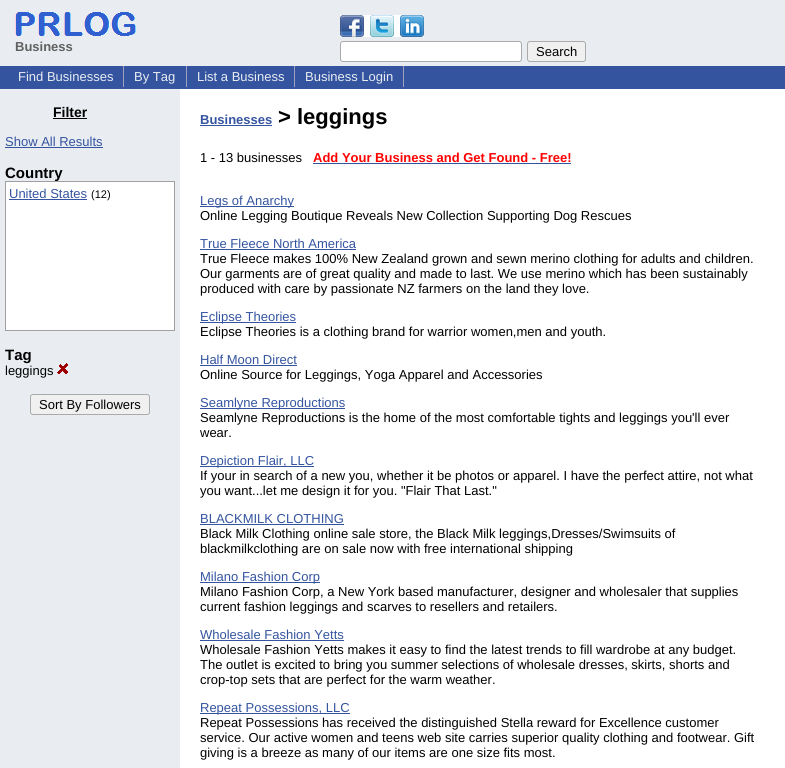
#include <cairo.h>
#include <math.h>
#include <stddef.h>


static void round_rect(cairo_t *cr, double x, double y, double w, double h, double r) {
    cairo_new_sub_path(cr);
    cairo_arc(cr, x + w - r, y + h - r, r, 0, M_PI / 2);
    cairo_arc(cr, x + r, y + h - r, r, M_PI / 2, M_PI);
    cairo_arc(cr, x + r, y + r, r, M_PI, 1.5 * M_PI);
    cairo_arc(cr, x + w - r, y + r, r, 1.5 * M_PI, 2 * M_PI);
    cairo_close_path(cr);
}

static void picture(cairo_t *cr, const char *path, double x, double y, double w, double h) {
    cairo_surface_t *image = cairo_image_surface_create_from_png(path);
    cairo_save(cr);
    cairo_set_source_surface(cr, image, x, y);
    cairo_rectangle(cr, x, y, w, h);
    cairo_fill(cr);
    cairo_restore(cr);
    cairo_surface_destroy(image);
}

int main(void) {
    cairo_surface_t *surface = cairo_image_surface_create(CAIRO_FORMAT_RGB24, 785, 768);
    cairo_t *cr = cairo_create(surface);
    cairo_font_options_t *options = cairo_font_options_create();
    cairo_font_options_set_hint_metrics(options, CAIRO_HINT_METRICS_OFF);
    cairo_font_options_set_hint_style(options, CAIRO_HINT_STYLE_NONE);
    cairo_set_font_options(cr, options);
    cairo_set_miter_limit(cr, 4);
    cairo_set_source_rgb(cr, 1, 1, 1);
    cairo_paint(cr);
    cairo_set_source_rgb(cr, 0.914, 0.929, 0.949);
    cairo_rectangle(cr, 0, 0, 785, 66);
    cairo_fill(cr);
    picture(cr, "img1.png", 15, 12, 121, 24);
    cairo_select_font_face(cr, "Liberation Sans", CAIRO_FONT_SLANT_NORMAL, CAIRO_FONT_WEIGHT_BOLD);
    cairo_set_font_size(cr, 13);
    cairo_set_source_rgb(cr, 0.376, 0.376, 0.376);
    cairo_move_to(cr, 15, 51);
    cairo_show_text(cr, "Business");
    picture(cr, "img2.png", 340, 15, 84, 22);
    cairo_set_source_rgb(cr, 1, 1, 1);
    round_rect(cr, 340.5, 41.5, 181, 20, 2.5);
    cairo_fill_preserve(cr);
    cairo_set_source_rgb(cr, 0.667, 0.667, 0.667);
    cairo_set_line_width(cr, 1);
    cairo_stroke(cr);
    cairo_set_source_rgb(cr, 0.941, 0.941, 0.941);
    round_rect(cr, 527.5, 41.5, 58, 20, 2.5);
    cairo_fill_preserve(cr);
    cairo_set_source_rgb(cr, 0.667, 0.667, 0.667);
    cairo_stroke(cr);
    cairo_select_font_face(cr, "Liberation Sans", CAIRO_FONT_SLANT_NORMAL, CAIRO_FONT_WEIGHT_NORMAL);
    cairo_set_source_rgb(cr, 0, 0, 0);
    cairo_move_to(cr, 536, 56);
    cairo_show_text(cr, "Search");
    cairo_set_source_rgb(cr, 0.204, 0.329, 0.627);
    cairo_rectangle(cr, 0, 66, 785, 23);
    cairo_fill(cr);
    cairo_set_source_rgb(cr, 0.627, 0.627, 0.753);
    cairo_rectangle(cr, 123, 66, 1, 21);
    cairo_fill(cr);
    cairo_set_source_rgb(cr, 0.914, 0.929, 0.949);
    cairo_move_to(cr, 18, 81);
    cairo_show_text(cr, "Find Businesses");
    cairo_set_source_rgb(cr, 0.627, 0.627, 0.753);
    cairo_rectangle(cr, 186, 66, 1, 21);
    cairo_fill(cr);
    cairo_set_source_rgb(cr, 0.914, 0.929, 0.949);
    cairo_move_to(cr, 134, 81);
    cairo_show_text(cr, "By Tag");
    cairo_set_source_rgb(cr, 0.627, 0.627, 0.753);
    cairo_rectangle(cr, 294, 66, 1, 21);
    cairo_fill(cr);
    cairo_set_source_rgb(cr, 0.914, 0.929, 0.949);
    cairo_move_to(cr, 197, 81);
    cairo_show_text(cr, "List a Business");
    cairo_set_source_rgb(cr, 0.627, 0.627, 0.753);
    cairo_rectangle(cr, 403, 66, 1, 21);
    cairo_fill(cr);
    cairo_set_source_rgb(cr, 0.914, 0.929, 0.949);
    cairo_move_to(cr, 305, 81);
    cairo_show_text(cr, "Business Login");
    cairo_rectangle(cr, 0, 89, 180, 679);
    cairo_fill(cr);
    cairo_select_font_face(cr, "Liberation Sans", CAIRO_FONT_SLANT_NORMAL, CAIRO_FONT_WEIGHT_BOLD);
    cairo_set_font_size(cr, 14);
    cairo_set_source_rgb(cr, 0, 0, 0);
    cairo_move_to(cr, 53, 117);
    cairo_show_text(cr, "Filter");
    cairo_rectangle(cr, 53, 118, 34, 1);
    cairo_fill(cr);
    cairo_select_font_face(cr, "Liberation Sans", CAIRO_FONT_SLANT_NORMAL, CAIRO_FONT_WEIGHT_NORMAL);
    cairo_set_font_size(cr, 13);
    cairo_set_source_rgb(cr, 0.204, 0.329, 0.627);
    cairo_move_to(cr, 5, 146);
    cairo_show_text(cr, "Show All Results");
    cairo_rectangle(cr, 5, 147, 98, 1);
    cairo_fill(cr);
    cairo_select_font_face(cr, "Liberation Sans", CAIRO_FONT_SLANT_NORMAL, CAIRO_FONT_WEIGHT_BOLD);
    cairo_set_font_size(cr, 15);
    cairo_set_source_rgb(cr, 0, 0, 0);
    cairo_move_to(cr, 5, 178);
    cairo_show_text(cr, "Country");
    cairo_set_source_rgb(cr, 1, 1, 1);
    cairo_rectangle(cr, 5.5, 181.5, 169, 149);
    cairo_fill_preserve(cr);
    cairo_set_source_rgb(cr, 0.627, 0.627, 0.627);
    cairo_stroke(cr);
    cairo_select_font_face(cr, "Liberation Sans", CAIRO_FONT_SLANT_NORMAL, CAIRO_FONT_WEIGHT_NORMAL);
    cairo_set_font_size(cr, 13);
    cairo_set_source_rgb(cr, 0.204, 0.329, 0.627);
    cairo_move_to(cr, 9, 198);
    cairo_show_text(cr, "United States");
    cairo_rectangle(cr, 9, 199, 78, 1);
    cairo_fill(cr);
    cairo_set_font_size(cr, 11);
    cairo_set_source_rgb(cr, 0, 0, 0);
    cairo_move_to(cr, 91, 198);
    cairo_show_text(cr, "(12)");
    cairo_select_font_face(cr, "Liberation Sans", CAIRO_FONT_SLANT_NORMAL, CAIRO_FONT_WEIGHT_BOLD);
    cairo_set_font_size(cr, 15);
    cairo_move_to(cr, 5, 360);
    cairo_show_text(cr, "Tag");
    cairo_select_font_face(cr, "Liberation Sans", CAIRO_FONT_SLANT_NORMAL, CAIRO_FONT_WEIGHT_NORMAL);
    cairo_set_font_size(cr, 13);
    cairo_move_to(cr, 5, 375);
    cairo_show_text(cr, "leggings");
    picture(cr, "img3.png", 57, 363, 11, 11);
    cairo_set_source_rgb(cr, 0.941, 0.941, 0.941);
    round_rect(cr, 30.5, 394.5, 119, 20, 2.5);
    cairo_fill_preserve(cr);
    cairo_set_source_rgb(cr, 0.667, 0.667, 0.667);
    cairo_stroke(cr);
    cairo_set_source_rgb(cr, 0, 0, 0);
    cairo_move_to(cr, 39, 409);
    cairo_show_text(cr, "Sort By Followers");
    cairo_select_font_face(cr, "Liberation Sans", CAIRO_FONT_SLANT_NORMAL, CAIRO_FONT_WEIGHT_BOLD);
    cairo_set_source_rgb(cr, 0.204, 0.329, 0.627);
    cairo_move_to(cr, 200, 124);
    cairo_show_text(cr, "Businesses");
    cairo_rectangle(cr, 200, 125, 72, 1);
    cairo_fill(cr);
    cairo_set_font_size(cr, 22);
    cairo_set_source_rgb(cr, 0, 0, 0);
    cairo_move_to(cr, 278, 124);
    cairo_show_text(cr, "> leggings");
    cairo_select_font_face(cr, "Liberation Sans", CAIRO_FONT_SLANT_NORMAL, CAIRO_FONT_WEIGHT_NORMAL);
    cairo_set_font_size(cr, 13);
    cairo_move_to(cr, 200, 162);
    cairo_show_text(cr, "1 - 13 businesses");
    cairo_select_font_face(cr, "Liberation Sans", CAIRO_FONT_SLANT_NORMAL, CAIRO_FONT_WEIGHT_BOLD);
    cairo_set_source_rgb(cr, 1, 0, 0);
    cairo_move_to(cr, 313, 162);
    cairo_show_text(cr, "Add Your Business and Get Found - Free!");
    cairo_set_source_rgb(cr, 0.204, 0.329, 0.627);
    cairo_rectangle(cr, 313, 163, 258, 1);
    cairo_fill(cr);
    cairo_rectangle(cr, 200, 206, 94, 1);
    cairo_fill(cr);
    cairo_select_font_face(cr, "Liberation Sans", CAIRO_FONT_SLANT_NORMAL, CAIRO_FONT_WEIGHT_NORMAL);
    cairo_move_to(cr, 200, 205);
    cairo_show_text(cr, "Legs of Anarchy");
    cairo_set_source_rgb(cr, 0, 0, 0);
    cairo_move_to(cr, 200, 220);
    cairo_show_text(cr, "Online Legging Boutique Reveals New Collection Supporting Dog Rescues");
    cairo_set_source_rgb(cr, 0.204, 0.329, 0.627);
    cairo_move_to(cr, 200, 248);
    cairo_show_text(cr, "True Fleece North America");
    cairo_rectangle(cr, 200, 249, 156, 1);
    cairo_fill(cr);
    cairo_set_source_rgb(cr, 0, 0, 0);
    cairo_move_to(cr, 200, 263);
    cairo_show_text(cr, "True Fleece makes 100% New Zealand grown and sewn merino clothing for adults and children.");
    cairo_move_to(cr, 200, 278);
    cairo_show_text(cr, "Our garments are of great quality and made to last. We use merino which has been sustainably");
    cairo_move_to(cr, 200, 293);
    cairo_show_text(cr, "produced with care by passionate NZ farmers on the land they love.");
    cairo_set_source_rgb(cr, 0.204, 0.329, 0.627);
    cairo_rectangle(cr, 200, 322, 96, 1);
    cairo_fill(cr);
    cairo_move_to(cr, 200, 321);
    cairo_show_text(cr, "Eclipse Theories");
    cairo_set_source_rgb(cr, 0, 0, 0);
    cairo_move_to(cr, 200, 336);
    cairo_show_text(cr, "Eclipse Theories is a clothing brand for warrior women,men and youth.");
    cairo_set_source_rgb(cr, 0.204, 0.329, 0.627);
    cairo_move_to(cr, 200, 364);
    cairo_show_text(cr, "Half Moon Direct");
    cairo_rectangle(cr, 200, 365, 97, 1);
    cairo_fill(cr);
    cairo_set_source_rgb(cr, 0, 0, 0);
    cairo_move_to(cr, 200, 379);
    cairo_show_text(cr, "Online Source for Leggings, Yoga Apparel and Accessories");
    cairo_set_source_rgb(cr, 0.204, 0.329, 0.627);
    cairo_rectangle(cr, 200, 408, 145, 1);
    cairo_fill(cr);
    cairo_move_to(cr, 200, 407);
    cairo_show_text(cr, "Seamlyne Reproductions");
    cairo_set_source_rgb(cr, 0, 0, 0);
    cairo_move_to(cr, 200, 422);
    cairo_show_text(cr, "Seamlyne Reproductions is the home of the most comfortable tights and leggings you'll ever");
    cairo_move_to(cr, 200, 437);
    cairo_show_text(cr, "wear.");
    cairo_set_source_rgb(cr, 0.204, 0.329, 0.627);
    cairo_rectangle(cr, 200, 466, 114, 1);
    cairo_fill(cr);
    cairo_move_to(cr, 200, 465);
    cairo_show_text(cr, "Depiction Flair, LLC");
    cairo_set_source_rgb(cr, 0, 0, 0);
    cairo_move_to(cr, 200, 480);
    cairo_show_text(cr, "If your in search of a new you, whether it be photos or apparel. I have the perfect attire, not what");
    cairo_move_to(cr, 200, 495);
    cairo_show_text(cr, "you want...let me design it for you. \"Flair That Last.\"");
    cairo_set_source_rgb(cr, 0.204, 0.329, 0.627);
    cairo_move_to(cr, 200, 523);
    cairo_show_text(cr, "BLACKMILK CLOTHING");
    cairo_rectangle(cr, 200, 524, 144, 1);
    cairo_fill(cr);
    cairo_set_source_rgb(cr, 0, 0, 0);
    cairo_move_to(cr, 200, 538);
    cairo_show_text(cr, "Black Milk Clothing online sale store, the Black Milk leggings,Dresses/Swimsuits of");
    cairo_move_to(cr, 200, 553);
    cairo_show_text(cr, "blackmilkclothing are on sale now with free international shipping");
    cairo_set_source_rgb(cr, 0.204, 0.329, 0.627);
    cairo_rectangle(cr, 200, 582, 120, 1);
    cairo_fill(cr);
    cairo_move_to(cr, 200, 581);
    cairo_show_text(cr, "Milano Fashion Corp");
    cairo_set_source_rgb(cr, 0, 0, 0);
    cairo_move_to(cr, 200, 596);
    cairo_show_text(cr, "Milano Fashion Corp, a New York based manufacturer, designer and wholesaler that supplies");
    cairo_move_to(cr, 200, 611);
    cairo_show_text(cr, "current fashion leggings and scarves to resellers and retailers.");
    cairo_set_source_rgb(cr, 0.204, 0.329, 0.627);
    cairo_move_to(cr, 200, 639);
    cairo_show_text(cr, "Wholesale Fashion Yetts");
    cairo_rectangle(cr, 200, 640, 144, 1);
    cairo_fill(cr);
    cairo_set_source_rgb(cr, 0, 0, 0);
    cairo_move_to(cr, 200, 654);
    cairo_show_text(cr, "Wholesale Fashion Yetts makes it easy to find the latest trends to fill wardrobe at any budget.");
    cairo_move_to(cr, 200, 669);
    cairo_show_text(cr, "The outlet is excited to bring you summer selections of wholesale dresses, skirts, shorts and");
    cairo_move_to(cr, 200, 684);
    cairo_show_text(cr, "crop-top sets that are perfect for the warm weather.");
    cairo_set_source_rgb(cr, 0.204, 0.329, 0.627);
    cairo_rectangle(cr, 200, 713, 150, 1);
    cairo_fill(cr);
    cairo_move_to(cr, 200, 712);
    cairo_show_text(cr, "Repeat Possessions, LLC");
    cairo_set_source_rgb(cr, 0, 0, 0);
    cairo_move_to(cr, 200, 727);
    cairo_show_text(cr, "Repeat Possessions has received the distinguished Stella reward for Excellence customer");
    cairo_move_to(cr, 200, 742);
    cairo_show_text(cr, "service. Our active women and teens web site carries superior quality clothing and footwear. Gift");
    cairo_move_to(cr, 200, 757);
    cairo_show_text(cr, "giving is a breeze as many of our items are one size fits most.");
    cairo_surface_write_to_png(surface, "page.png");
    cairo_font_options_destroy(options);
    cairo_destroy(cr);
    cairo_surface_destroy(surface);
    return 0;
}
